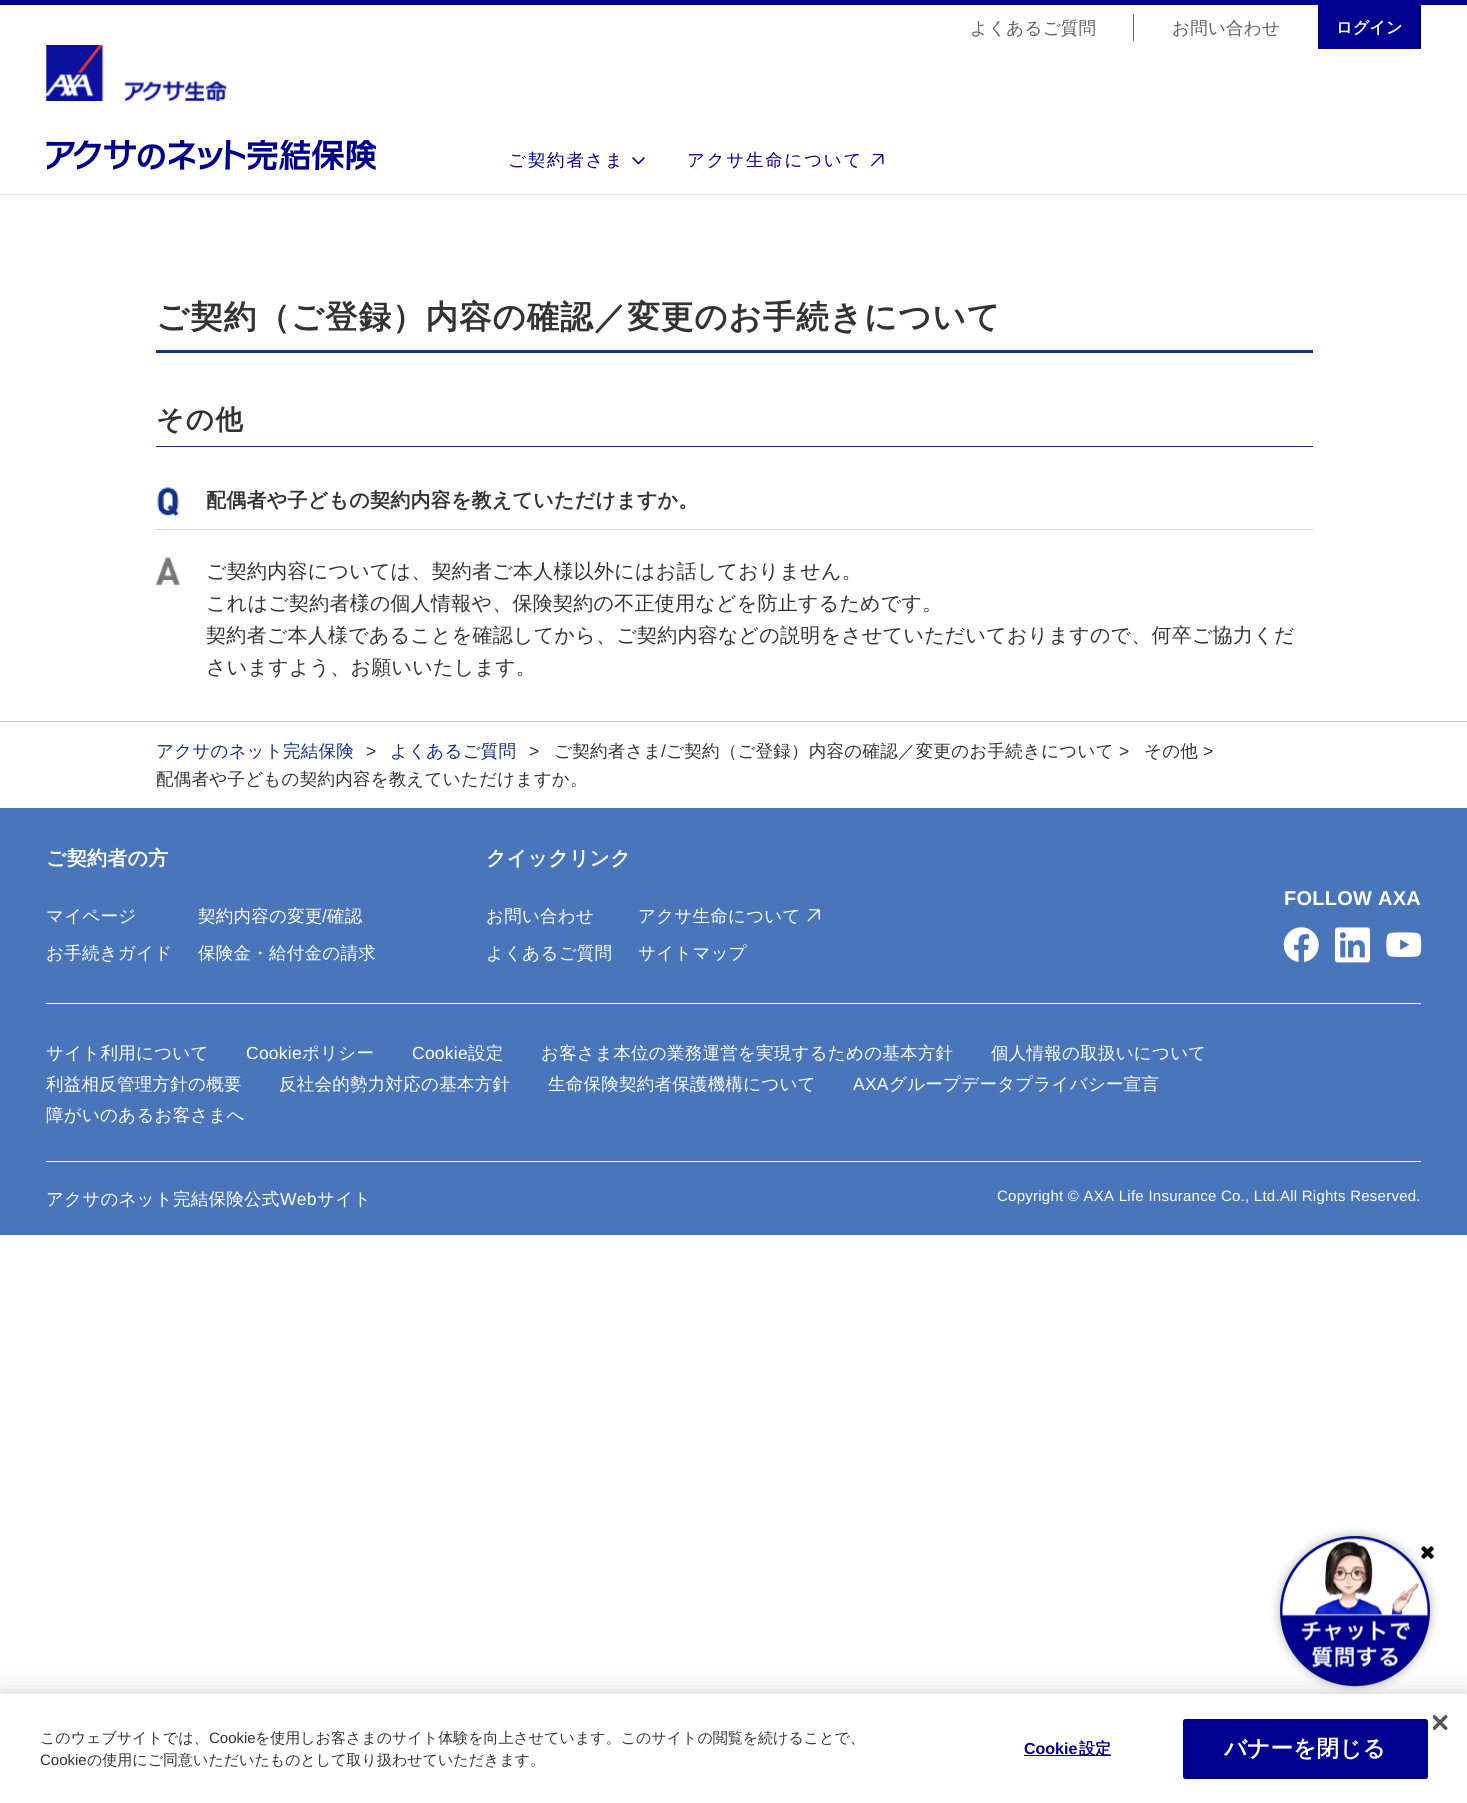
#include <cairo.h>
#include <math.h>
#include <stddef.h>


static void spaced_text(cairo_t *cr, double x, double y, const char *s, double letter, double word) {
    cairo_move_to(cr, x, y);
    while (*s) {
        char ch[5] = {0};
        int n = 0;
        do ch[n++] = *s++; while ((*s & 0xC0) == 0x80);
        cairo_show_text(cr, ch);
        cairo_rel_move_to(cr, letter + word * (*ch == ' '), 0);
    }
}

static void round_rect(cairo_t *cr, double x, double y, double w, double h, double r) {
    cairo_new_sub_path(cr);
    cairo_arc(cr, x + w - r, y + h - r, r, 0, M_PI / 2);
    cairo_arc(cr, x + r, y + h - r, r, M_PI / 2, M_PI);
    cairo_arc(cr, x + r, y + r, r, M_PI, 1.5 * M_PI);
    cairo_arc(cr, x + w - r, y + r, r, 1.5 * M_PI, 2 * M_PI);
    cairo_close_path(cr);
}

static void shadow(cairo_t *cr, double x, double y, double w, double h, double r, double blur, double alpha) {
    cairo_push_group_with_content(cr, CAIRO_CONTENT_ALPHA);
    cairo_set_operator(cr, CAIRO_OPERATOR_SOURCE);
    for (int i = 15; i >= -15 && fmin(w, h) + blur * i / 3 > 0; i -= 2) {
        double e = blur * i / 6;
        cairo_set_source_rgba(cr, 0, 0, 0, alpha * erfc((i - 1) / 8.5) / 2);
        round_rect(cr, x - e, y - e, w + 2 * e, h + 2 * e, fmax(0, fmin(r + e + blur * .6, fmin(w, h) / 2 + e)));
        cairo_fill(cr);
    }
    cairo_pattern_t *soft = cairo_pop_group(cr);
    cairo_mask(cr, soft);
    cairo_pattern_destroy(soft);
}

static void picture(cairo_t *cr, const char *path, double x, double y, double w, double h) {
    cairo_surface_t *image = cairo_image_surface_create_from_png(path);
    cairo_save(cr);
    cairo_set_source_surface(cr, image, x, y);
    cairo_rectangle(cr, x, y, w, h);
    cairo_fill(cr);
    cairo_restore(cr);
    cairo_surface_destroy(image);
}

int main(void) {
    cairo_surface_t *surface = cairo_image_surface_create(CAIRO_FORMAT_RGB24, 1467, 1803);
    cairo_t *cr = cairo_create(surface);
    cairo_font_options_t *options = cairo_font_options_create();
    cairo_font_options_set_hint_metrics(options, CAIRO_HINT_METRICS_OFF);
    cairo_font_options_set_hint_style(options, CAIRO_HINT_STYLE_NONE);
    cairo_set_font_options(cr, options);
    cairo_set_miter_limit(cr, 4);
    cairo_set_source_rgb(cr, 1, 1, 1);
    cairo_paint(cr);
    cairo_set_source_rgb(cr, 0, 0, 0.561);
    cairo_rectangle(cr, 0, 0, 1467, 5);
    cairo_fill(cr);
    cairo_set_source_rgb(cr, 0.898, 0.898, 0.898);
    cairo_rectangle(cr, 0, 194, 1467, 1);
    cairo_fill(cr);
    cairo_select_font_face(cr, "WenQuanYi Zen Hei Medium", CAIRO_FONT_SLANT_NORMAL, CAIRO_FONT_WEIGHT_NORMAL);
    cairo_set_font_size(cr, 17.5);
    cairo_set_source_rgb(cr, 0.373, 0.373, 0.373);
    spaced_text(cr, 970, 34, "よくあるご質問", 0.25, 0);
    cairo_rectangle(cr, 1133, 14, 1, 27);
    cairo_fill(cr);
    spaced_text(cr, 1172, 34, "お問い合わせ", 0.25, 0);
    cairo_set_source_rgb(cr, 0, 0, 0.561);
    cairo_rectangle(cr, 1318, 5, 103, 44);
    cairo_fill(cr);
    cairo_select_font_face(cr, "WenQuanYi Zen Hei", CAIRO_FONT_SLANT_NORMAL, CAIRO_FONT_WEIGHT_BOLD);
    cairo_set_font_size(cr, 16.25);
    cairo_set_source_rgb(cr, 1, 1, 1);
    cairo_move_to(cr, 1336, 33);
    cairo_show_text(cr, "ログイン");
    picture(cr, "img1.png", 46, 45, 181, 56);
    picture(cr, "img2.png", 46, 140, 330, 30);
    cairo_select_font_face(cr, "WenQuanYi Zen Hei Medium", CAIRO_FONT_SLANT_NORMAL, CAIRO_FONT_WEIGHT_NORMAL);
    cairo_set_font_size(cr, 17.5);
    cairo_set_source_rgb(cr, 0, 0, 0.561);
    spaced_text(cr, 508, 166, "ご契約者さま", 1.75, 0);
    cairo_new_path(cr);
    cairo_move_to(cr, 644, 158);
    cairo_line_to(cr, 638.5, 163.5);
    cairo_line_to(cr, 633, 158);
    cairo_set_source_rgb(cr, 0, 0.008, 0.561);
    cairo_set_line_width(cr, 1.6);
    cairo_set_line_cap(cr, CAIRO_LINE_CAP_ROUND);
    cairo_set_line_join(cr, CAIRO_LINE_JOIN_ROUND);
    cairo_stroke(cr);
    cairo_set_source_rgb(cr, 0, 0, 0.561);
    spaced_text(cr, 687, 166, "アクサ生命について", 1.75, 0);
    picture(cr, "img3.png", 871, 153, 13, 14);
    cairo_set_source_rgb(cr, 0.063, 0.192, 0.518);
    cairo_rectangle(cr, 156, 350, 1157, 3);
    cairo_fill(cr);
    cairo_select_font_face(cr, "WenQuanYi Zen Hei", CAIRO_FONT_SLANT_NORMAL, CAIRO_FONT_WEIGHT_BOLD);
    cairo_set_font_size(cr, 32.5);
    cairo_set_source_rgb(cr, 0.2, 0.2, 0.2);
    spaced_text(cr, 156, 328, "ご契約（ご登録）内容の確認／変更のお手続きについて", 1, 0);
    cairo_set_source_rgb(cr, 0.063, 0.192, 0.518);
    cairo_rectangle(cr, 156, 446, 1157, 1);
    cairo_fill(cr);
    cairo_set_font_size(cr, 27.5);
    cairo_set_source_rgb(cr, 0.2, 0.2, 0.2);
    spaced_text(cr, 156, 429, "その他", 1.5, 0);
    cairo_set_source_rgb(cr, 0.871, 0.835, 0.839);
    cairo_rectangle(cr, 156, 529, 1157, 1);
    cairo_fill(cr);
    picture(cr, "img4.png", 157, 487, 22, 30);
    cairo_set_font_size(cr, 20);
    cairo_set_source_rgb(cr, 0.2, 0.2, 0.2);
    spaced_text(cr, 206, 507, "配偶者や子どもの契約内容を教えていただけますか。", 0.25, 0);
    picture(cr, "img5.png", 156, 557, 24, 29);
    cairo_select_font_face(cr, "WenQuanYi Zen Hei Medium", CAIRO_FONT_SLANT_NORMAL, CAIRO_FONT_WEIGHT_NORMAL);
    spaced_text(cr, 206, 578, "ご契約内容については、契約者ご本人様以外にはお話しておりません。", 0.25, 0);
    spaced_text(cr, 206, 610, "これはご契約者様の個人情報や、保険契約の不正使用などを防止するためです。", 0.25, 0);
    spaced_text(cr, 206, 642, "契約者ご本人様であることを確認してから、ご契約内容などの説明をさせていただいておりますので、何卒ご協力くだ", 0.25, 0);
    spaced_text(cr, 206, 674, "さいますよう、お願いいたします。", 0.25, 0);
    cairo_set_source_rgb(cr, 0.773, 0.773, 0.773);
    cairo_rectangle(cr, 0, 721, 1467, 1);
    cairo_fill(cr);
    cairo_set_font_size(cr, 17.5);
    cairo_set_source_rgb(cr, 0.063, 0.192, 0.518);
    spaced_text(cr, 156, 757, "アクサのネット完結保険", 0.25, 0);
    cairo_select_font_face(cr, "Liberation Sans", CAIRO_FONT_SLANT_NORMAL, CAIRO_FONT_WEIGHT_NORMAL);
    cairo_set_source_rgb(cr, 0.2, 0.2, 0.2);
    spaced_text(cr, 366, 757, ">", 0.25, 0);
    cairo_select_font_face(cr, "WenQuanYi Zen Hei Medium", CAIRO_FONT_SLANT_NORMAL, CAIRO_FONT_WEIGHT_NORMAL);
    cairo_set_source_rgb(cr, 0.063, 0.192, 0.518);
    spaced_text(cr, 390, 757, "よくあるご質問", 0.25, 0);
    cairo_select_font_face(cr, "Liberation Sans", CAIRO_FONT_SLANT_NORMAL, CAIRO_FONT_WEIGHT_NORMAL);
    cairo_set_source_rgb(cr, 0.2, 0.2, 0.2);
    spaced_text(cr, 529, 757, ">", 0.25, 0);
    cairo_select_font_face(cr, "WenQuanYi Zen Hei Medium", CAIRO_FONT_SLANT_NORMAL, CAIRO_FONT_WEIGHT_NORMAL);
    spaced_text(cr, 554, 757, "ご契約者さま", 0.25, 0);
    cairo_select_font_face(cr, "Liberation Sans", CAIRO_FONT_SLANT_NORMAL, CAIRO_FONT_WEIGHT_NORMAL);
    spaced_text(cr, 661, 757, "/", 0.25, 0);
    cairo_select_font_face(cr, "WenQuanYi Zen Hei Medium", CAIRO_FONT_SLANT_NORMAL, CAIRO_FONT_WEIGHT_NORMAL);
    spaced_text(cr, 666, 757, "ご契約（ご登録）内容の確認／変更のお手続きについて", 0.25, 0);
    cairo_select_font_face(cr, "Liberation Sans", CAIRO_FONT_SLANT_NORMAL, CAIRO_FONT_WEIGHT_NORMAL);
    spaced_text(cr, 1119, 757, ">", 0.25, 0);
    cairo_select_font_face(cr, "WenQuanYi Zen Hei Medium", CAIRO_FONT_SLANT_NORMAL, CAIRO_FONT_WEIGHT_NORMAL);
    spaced_text(cr, 1144, 757, "その他", 0.25, 0);
    cairo_select_font_face(cr, "Liberation Sans", CAIRO_FONT_SLANT_NORMAL, CAIRO_FONT_WEIGHT_NORMAL);
    spaced_text(cr, 1203, 757, ">", 0.25, 0);
    cairo_select_font_face(cr, "WenQuanYi Zen Hei Medium", CAIRO_FONT_SLANT_NORMAL, CAIRO_FONT_WEIGHT_NORMAL);
    spaced_text(cr, 156, 785, "配偶者や子どもの契約内容を教えていただけますか。", 0.25, 0);
    cairo_set_source_rgb(cr, 0.286, 0.463, 0.729);
    cairo_rectangle(cr, 0, 808, 1467, 427);
    cairo_fill(cr);
    cairo_select_font_face(cr, "WenQuanYi Zen Hei", CAIRO_FONT_SLANT_NORMAL, CAIRO_FONT_WEIGHT_BOLD);
    cairo_set_font_size(cr, 20);
    cairo_set_source_rgb(cr, 1, 1, 1);
    spaced_text(cr, 46, 865, "ご契約者の方", 0.25, 0);
    cairo_select_font_face(cr, "WenQuanYi Zen Hei Medium", CAIRO_FONT_SLANT_NORMAL, CAIRO_FONT_WEIGHT_NORMAL);
    cairo_set_font_size(cr, 17.5);
    spaced_text(cr, 46, 922, "マイページ", 0.25, 0);
    spaced_text(cr, 198, 922, "契約内容の変更", 0.25, 0);
    cairo_select_font_face(cr, "Liberation Sans", CAIRO_FONT_SLANT_NORMAL, CAIRO_FONT_WEIGHT_NORMAL);
    spaced_text(cr, 322, 922, "/", 0.25, 0);
    cairo_select_font_face(cr, "WenQuanYi Zen Hei Medium", CAIRO_FONT_SLANT_NORMAL, CAIRO_FONT_WEIGHT_NORMAL);
    spaced_text(cr, 327, 922, "確認", 0.25, 0);
    spaced_text(cr, 46, 959, "お手続きガイド", 0.25, 0);
    spaced_text(cr, 198, 959, "保険金・給付金の請求", 0.25, 0);
    cairo_select_font_face(cr, "WenQuanYi Zen Hei", CAIRO_FONT_SLANT_NORMAL, CAIRO_FONT_WEIGHT_BOLD);
    cairo_set_font_size(cr, 20);
    spaced_text(cr, 486, 865, "クイックリンク", 0.25, 0);
    cairo_select_font_face(cr, "WenQuanYi Zen Hei Medium", CAIRO_FONT_SLANT_NORMAL, CAIRO_FONT_WEIGHT_NORMAL);
    cairo_set_font_size(cr, 17.5);
    spaced_text(cr, 486, 922, "お問い合わせ", 0.25, 0);
    spaced_text(cr, 638, 922, "アクサ生命について", 0.25, 0);
    picture(cr, "img6.png", 807, 909, 13, 13);
    spaced_text(cr, 486, 959, "よくあるご質問", 0.25, 0);
    spaced_text(cr, 638, 959, "サイトマップ", 0.25, 0);
    cairo_select_font_face(cr, "Liberation Sans", CAIRO_FONT_SLANT_NORMAL, CAIRO_FONT_WEIGHT_BOLD);
    cairo_set_font_size(cr, 20);
    spaced_text(cr, 1284, 905, "FOLLOW AXA", 0.25, 0);
    picture(cr, "img7.png", 1283, 927, 36, 35);
    picture(cr, "img8.png", 1335, 927, 35, 36);
    picture(cr, "img9.png", 1386, 932, 36, 25);
    cairo_rectangle(cr, 46, 1003, 1375, 1);
    cairo_fill(cr);
    cairo_select_font_face(cr, "WenQuanYi Zen Hei Medium", CAIRO_FONT_SLANT_NORMAL, CAIRO_FONT_WEIGHT_NORMAL);
    cairo_set_font_size(cr, 17.5);
    spaced_text(cr, 46, 1059, "サイト利用について", 0.25, 0);
    cairo_select_font_face(cr, "Liberation Sans", CAIRO_FONT_SLANT_NORMAL, CAIRO_FONT_WEIGHT_NORMAL);
    spaced_text(cr, 246, 1059, "Cookie", 0.25, 0);
    cairo_select_font_face(cr, "WenQuanYi Zen Hei Medium", CAIRO_FONT_SLANT_NORMAL, CAIRO_FONT_WEIGHT_NORMAL);
    spaced_text(cr, 302, 1059, "ポリシー", 0.25, 0);
    cairo_select_font_face(cr, "Liberation Sans", CAIRO_FONT_SLANT_NORMAL, CAIRO_FONT_WEIGHT_NORMAL);
    spaced_text(cr, 412, 1059, "Cookie", 0.25, 0);
    cairo_select_font_face(cr, "WenQuanYi Zen Hei Medium", CAIRO_FONT_SLANT_NORMAL, CAIRO_FONT_WEIGHT_NORMAL);
    spaced_text(cr, 468, 1059, "設定", 0.25, 0);
    spaced_text(cr, 541, 1059, "お客さま本位の業務運営を実現するための基本方針", 0.25, 0);
    spaced_text(cr, 991, 1059, "個人情報の取扱いについて", 0.25, 0);
    spaced_text(cr, 46, 1090, "利益相反管理方針の概要", 0.25, 0);
    spaced_text(cr, 279, 1090, "反社会的勢力対応の基本方針", 0.25, 0);
    spaced_text(cr, 548, 1090, "生命保険契約者保護機構について", 0.25, 0);
    cairo_select_font_face(cr, "Liberation Sans", CAIRO_FONT_SLANT_NORMAL, CAIRO_FONT_WEIGHT_NORMAL);
    spaced_text(cr, 853, 1090, "AXA", 0.25, 0);
    cairo_select_font_face(cr, "WenQuanYi Zen Hei Medium", CAIRO_FONT_SLANT_NORMAL, CAIRO_FONT_WEIGHT_NORMAL);
    spaced_text(cr, 889, 1090, "グループデータプライバシー宣言", 0.25, 0);
    spaced_text(cr, 46, 1121, "障がいのあるお客さまへ", 0.25, 0);
    cairo_rectangle(cr, 46, 1161, 1375, 1);
    cairo_fill(cr);
    spaced_text(cr, 46, 1205, "アクサのネット完結保険公式", 0.25, 0);
    cairo_select_font_face(cr, "Liberation Sans", CAIRO_FONT_SLANT_NORMAL, CAIRO_FONT_WEIGHT_NORMAL);
    spaced_text(cr, 280, 1205, "Web", 0.25, 0);
    cairo_select_font_face(cr, "WenQuanYi Zen Hei Medium", CAIRO_FONT_SLANT_NORMAL, CAIRO_FONT_WEIGHT_NORMAL);
    spaced_text(cr, 317, 1205, "サイト", 0.25, 0);
    cairo_select_font_face(cr, "Liberation Sans", CAIRO_FONT_SLANT_NORMAL, CAIRO_FONT_WEIGHT_NORMAL);
    cairo_set_font_size(cr, 15);
    spaced_text(cr, 997, 1201, "Copyright © AXA Life Insurance Co., Ltd.All Rights Reserved.", 0.25, 0);
    cairo_set_source_rgb(cr, 0, 0, 0);
    shadow(cr, 1280, 1536, 150, 150, 75, 5, 0.3);
    cairo_set_source_rgb(cr, 0.063, 0.192, 0.518);
    cairo_arc(cr, 1355, 1611, 75, 0, 2 * M_PI);
    cairo_fill(cr);
    picture(cr, "img10.png", 1280, 1536, 150, 151);
    picture(cr, "img11.png", 1421, 1546, 13, 13);
    cairo_set_source_rgb(cr, 0, 0, 0);
    shadow(cr, 0, 1694, 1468, 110, 0, 11, 0.2);
    cairo_set_source_rgb(cr, 1, 1, 1);
    cairo_rectangle(cr, 0, 1694, 1467, 109);
    cairo_fill(cr);
    picture(cr, "img12.png", 1433, 1715, 15, 15);
    cairo_select_font_face(cr, "WenQuanYi Zen Hei Medium", CAIRO_FONT_SLANT_NORMAL, CAIRO_FONT_WEIGHT_NORMAL);
    cairo_set_source_rgb(cr, 0.2, 0.2, 0.2);
    cairo_move_to(cr, 40, 1743);
    cairo_show_text(cr, "このウェブサイトでは、");
    cairo_select_font_face(cr, "Liberation Sans", CAIRO_FONT_SLANT_NORMAL, CAIRO_FONT_WEIGHT_NORMAL);
    cairo_move_to(cr, 209, 1743);
    cairo_show_text(cr, "Cookie");
    cairo_select_font_face(cr, "WenQuanYi Zen Hei Medium", CAIRO_FONT_SLANT_NORMAL, CAIRO_FONT_WEIGHT_NORMAL);
    cairo_move_to(cr, 255, 1743);
    cairo_show_text(cr, "を使用しお客さまのサイト体験を向上させています。このサイトの閲覧を続けることで、");
    cairo_select_font_face(cr, "Liberation Sans", CAIRO_FONT_SLANT_NORMAL, CAIRO_FONT_WEIGHT_NORMAL);
    cairo_move_to(cr, 40, 1765);
    cairo_show_text(cr, "Cookie");
    cairo_select_font_face(cr, "WenQuanYi Zen Hei Medium", CAIRO_FONT_SLANT_NORMAL, CAIRO_FONT_WEIGHT_NORMAL);
    cairo_move_to(cr, 87, 1765);
    cairo_show_text(cr, "の使用にご同意いただいたものとして取り扱わせていただきます。");
    cairo_select_font_face(cr, "Liberation Sans", CAIRO_FONT_SLANT_NORMAL, CAIRO_FONT_WEIGHT_BOLD);
    cairo_set_font_size(cr, 16);
    cairo_set_source_rgb(cr, 0, 0, 0.561);
    cairo_move_to(cr, 1024, 1754);
    cairo_show_text(cr, "Cookie");
    cairo_rectangle(cr, 1024, 1755, 87, 1);
    cairo_fill(cr);
    cairo_select_font_face(cr, "WenQuanYi Zen Hei", CAIRO_FONT_SLANT_NORMAL, CAIRO_FONT_WEIGHT_BOLD);
    cairo_move_to(cr, 1079, 1754);
    cairo_show_text(cr, "設定");
    round_rect(cr, 1183.5, 1719.5, 244, 59, 2);
    cairo_fill_preserve(cr);
    cairo_set_line_width(cr, 1);
    cairo_set_line_cap(cr, CAIRO_LINE_CAP_BUTT);
    cairo_set_line_join(cr, CAIRO_LINE_JOIN_MITER);
    cairo_stroke(cr);
    cairo_set_font_size(cr, 22.5);
    cairo_set_source_rgb(cr, 1, 1, 1);
    spaced_text(cr, 1224, 1756, "バナーを閉じる", 0.25, 0);
    cairo_surface_write_to_png(surface, "page.png");
    cairo_font_options_destroy(options);
    cairo_destroy(cr);
    cairo_surface_destroy(surface);
    return 0;
}
